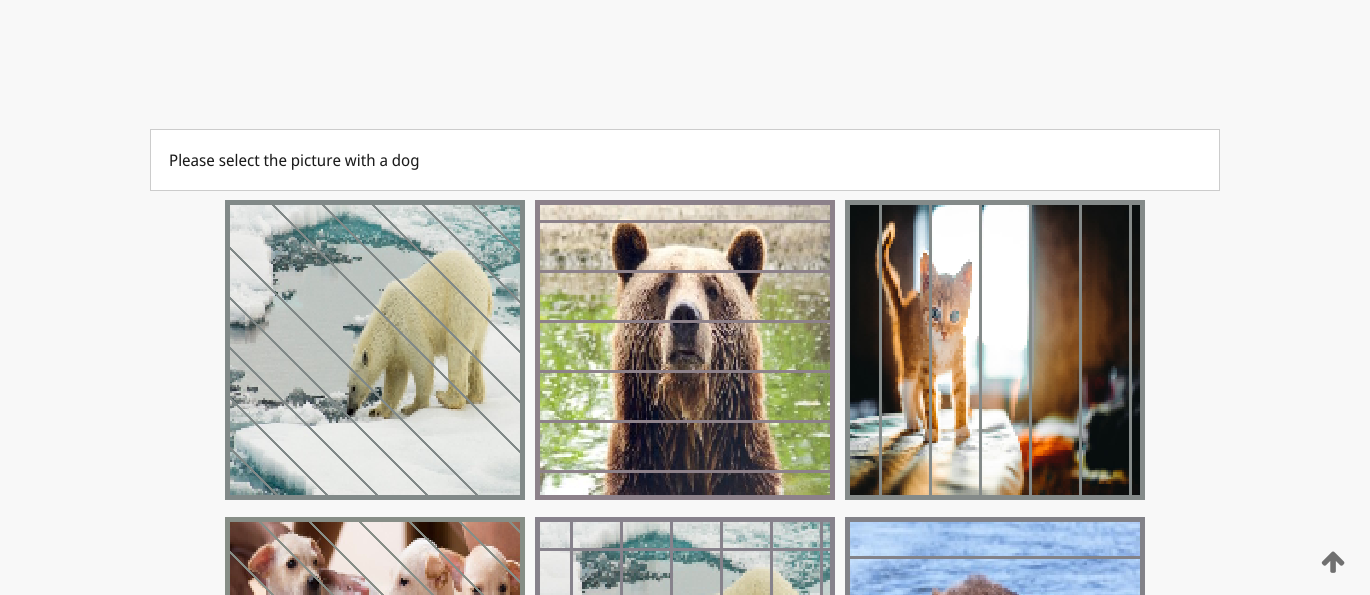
#include <cairo.h>
#include <math.h>
#include <stddef.h>


static void picture(cairo_t *cr, const char *path, double x, double y, double w, double h) {
    cairo_surface_t *image = cairo_image_surface_create_from_png(path);
    cairo_save(cr);
    cairo_set_source_surface(cr, image, x, y);
    cairo_rectangle(cr, x, y, w, h);
    cairo_fill(cr);
    cairo_restore(cr);
    cairo_surface_destroy(image);
}

int main(void) {
    cairo_surface_t *surface = cairo_image_surface_create(CAIRO_FORMAT_RGB24, 1370, 595);
    cairo_t *cr = cairo_create(surface);
    cairo_font_options_t *options = cairo_font_options_create();
    cairo_font_options_set_hint_metrics(options, CAIRO_HINT_METRICS_OFF);
    cairo_font_options_set_hint_style(options, CAIRO_HINT_STYLE_NONE);
    cairo_set_font_options(cr, options);
    cairo_set_miter_limit(cr, 4);
    cairo_set_source_rgb(cr, 0.969, 0.969, 0.969);
    cairo_paint(cr);
    cairo_set_source_rgb(cr, 1, 1, 1);
    cairo_rectangle(cr, 150.5, 129.5, 1069, 61);
    cairo_fill_preserve(cr);
    cairo_set_source_rgb(cr, 0.8, 0.8, 0.8);
    cairo_set_line_width(cr, 1);
    cairo_stroke(cr);
    cairo_select_font_face(cr, "Noto Sans Display", CAIRO_FONT_SLANT_NORMAL, CAIRO_FONT_WEIGHT_NORMAL);
    cairo_set_font_size(cr, 16);
    cairo_set_source_rgb(cr, 0.102, 0.102, 0.102);
    cairo_move_to(cr, 169, 166);
    cairo_show_text(cr, "Please select the picture with a dog");
    picture(cr, "img1.png", 225, 200, 300, 300);
    picture(cr, "img2.png", 535, 200, 300, 300);
    picture(cr, "img3.png", 845, 200, 300, 300);
    picture(cr, "img4.png", 225, 517, 300, 78);
    picture(cr, "img5.png", 535, 517, 300, 78);
    picture(cr, "img6.png", 845, 517, 300, 78);
    picture(cr, "img7.png", 1321, 551, 24, 22);
    cairo_surface_write_to_png(surface, "page.png");
    cairo_font_options_destroy(options);
    cairo_destroy(cr);
    cairo_surface_destroy(surface);
    return 0;
}
